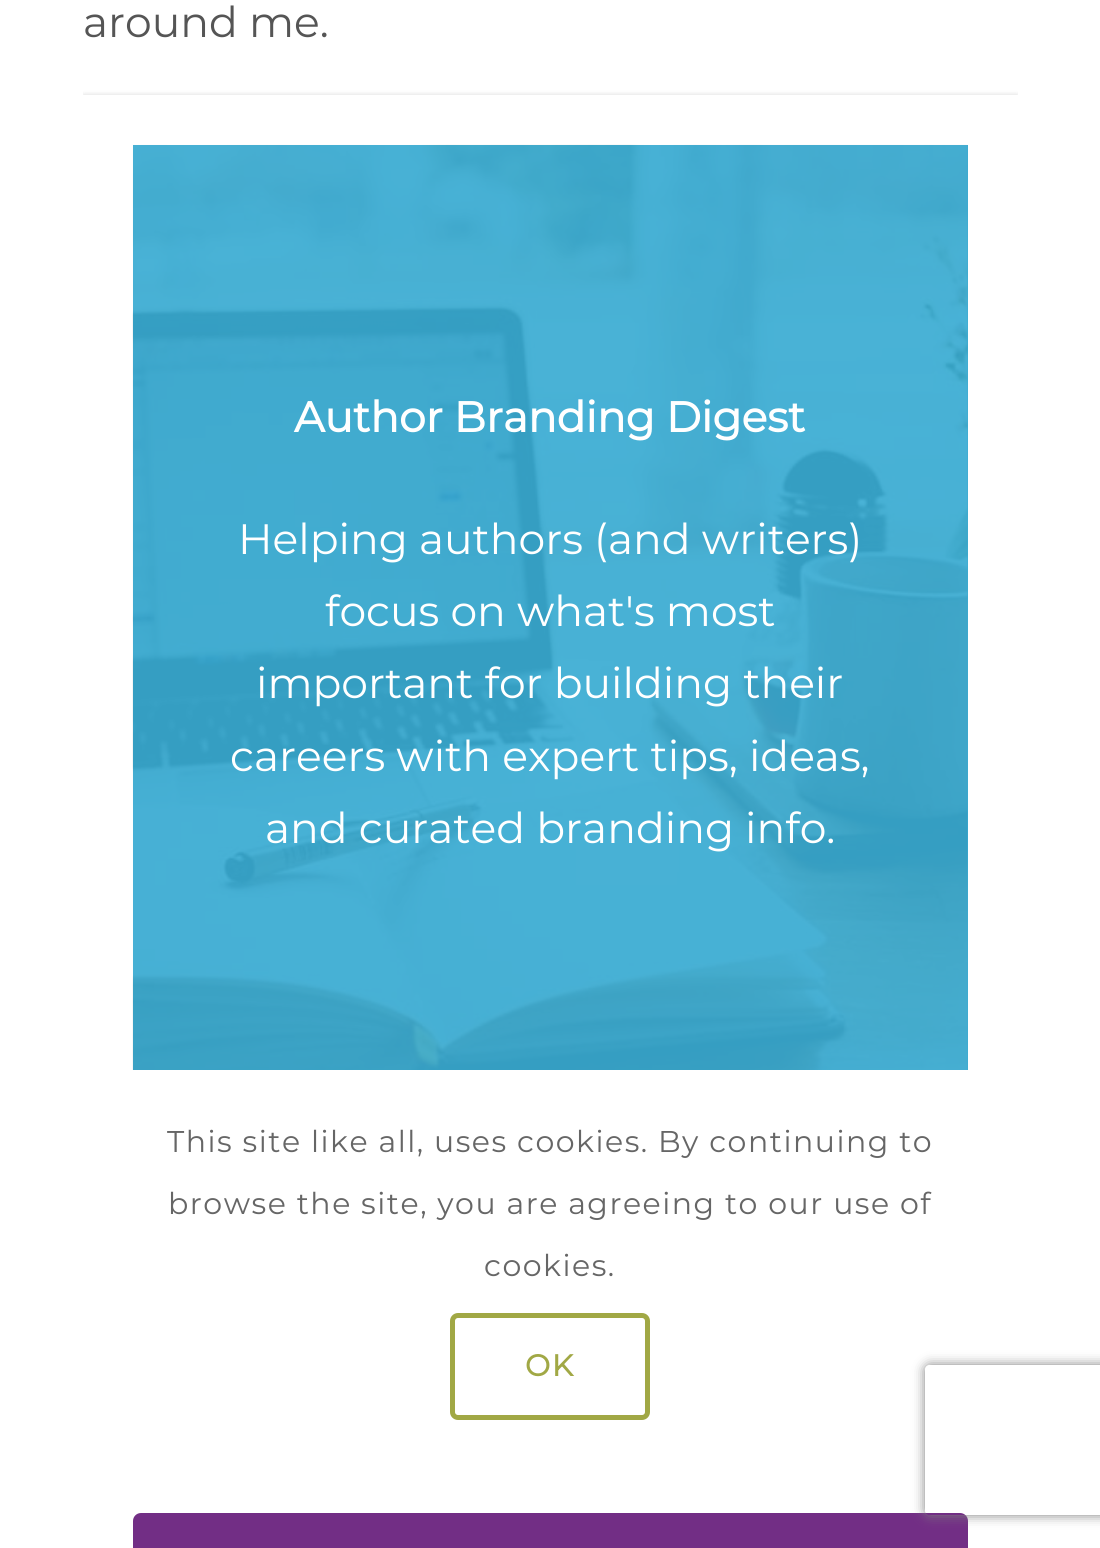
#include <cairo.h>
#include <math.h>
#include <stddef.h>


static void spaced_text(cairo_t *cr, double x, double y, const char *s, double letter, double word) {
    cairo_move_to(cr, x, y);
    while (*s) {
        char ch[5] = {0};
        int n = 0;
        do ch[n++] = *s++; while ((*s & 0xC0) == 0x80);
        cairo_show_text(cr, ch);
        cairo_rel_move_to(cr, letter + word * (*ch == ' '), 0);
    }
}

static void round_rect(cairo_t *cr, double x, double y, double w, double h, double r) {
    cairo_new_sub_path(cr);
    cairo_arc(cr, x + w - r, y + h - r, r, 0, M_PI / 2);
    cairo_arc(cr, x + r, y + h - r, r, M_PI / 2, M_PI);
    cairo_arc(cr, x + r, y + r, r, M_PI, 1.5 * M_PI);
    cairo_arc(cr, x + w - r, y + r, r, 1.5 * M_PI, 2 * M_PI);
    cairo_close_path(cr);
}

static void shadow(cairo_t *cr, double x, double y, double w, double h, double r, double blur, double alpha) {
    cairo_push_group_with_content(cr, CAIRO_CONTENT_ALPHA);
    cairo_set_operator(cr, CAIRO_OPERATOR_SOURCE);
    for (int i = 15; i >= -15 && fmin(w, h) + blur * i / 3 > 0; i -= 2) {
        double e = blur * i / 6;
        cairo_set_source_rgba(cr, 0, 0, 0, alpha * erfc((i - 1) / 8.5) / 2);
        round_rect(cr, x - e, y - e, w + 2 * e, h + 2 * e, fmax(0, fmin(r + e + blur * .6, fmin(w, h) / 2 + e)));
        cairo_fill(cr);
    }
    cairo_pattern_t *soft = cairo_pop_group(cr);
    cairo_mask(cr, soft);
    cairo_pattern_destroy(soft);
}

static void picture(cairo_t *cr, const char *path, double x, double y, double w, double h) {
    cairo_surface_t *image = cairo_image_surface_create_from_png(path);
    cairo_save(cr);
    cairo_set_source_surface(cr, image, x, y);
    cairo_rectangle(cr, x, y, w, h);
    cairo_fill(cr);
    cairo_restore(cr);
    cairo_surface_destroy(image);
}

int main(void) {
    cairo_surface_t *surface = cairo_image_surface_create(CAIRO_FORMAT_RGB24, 1100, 1548);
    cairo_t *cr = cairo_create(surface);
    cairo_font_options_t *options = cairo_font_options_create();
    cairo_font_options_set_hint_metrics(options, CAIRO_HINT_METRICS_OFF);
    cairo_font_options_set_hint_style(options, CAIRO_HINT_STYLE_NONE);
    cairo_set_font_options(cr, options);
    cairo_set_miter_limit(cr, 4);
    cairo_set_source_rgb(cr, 1, 1, 1);
    cairo_paint(cr);
    cairo_select_font_face(cr, "Montserrat Thin", CAIRO_FONT_SLANT_NORMAL, CAIRO_FONT_WEIGHT_NORMAL);
    cairo_set_font_size(cr, 42.5);
    cairo_set_source_rgb(cr, 0.333, 0.333, 0.333);
    cairo_move_to(cr, 83, 37);
    cairo_show_text(cr, "around me.");
    cairo_save(cr);
    cairo_rectangle(cr, 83, 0, 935, 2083);
    cairo_clip(cr);
    cairo_set_source_rgb(cr, 0, 0, 0);
    shadow(cr, 83, 95, 935, 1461, 0, 2.5, 0.15);
    cairo_restore(cr);
    cairo_set_source_rgb(cr, 1, 1, 1);
    cairo_rectangle(cr, 83, 95, 935, 1453);
    cairo_fill(cr);
    cairo_set_source_rgb(cr, 0.227, 0.671, 0.824);
    cairo_rectangle(cr, 133, 145, 835, 925);
    cairo_fill(cr);
    picture(cr, "img1.png", 132, 144, 836, 926);
    cairo_select_font_face(cr, "Montserrat", CAIRO_FONT_SLANT_NORMAL, CAIRO_FONT_WEIGHT_BOLD);
    cairo_set_source_rgb(cr, 1, 1, 1);
    cairo_move_to(cr, 294, 432);
    cairo_show_text(cr, "Author Branding Digest");
    cairo_select_font_face(cr, "Montserrat Thin", CAIRO_FONT_SLANT_NORMAL, CAIRO_FONT_WEIGHT_NORMAL);
    cairo_move_to(cr, 238, 554);
    cairo_show_text(cr, "Helping authors (and writers)");
    cairo_move_to(cr, 325, 626);
    cairo_show_text(cr, "focus on what's most");
    cairo_move_to(cr, 256, 698);
    cairo_show_text(cr, "important for building their");
    cairo_move_to(cr, 230, 771);
    cairo_show_text(cr, "careers with expert tips, ideas,");
    cairo_move_to(cr, 265, 843);
    cairo_show_text(cr, "and curated branding info.");
    cairo_set_source_rgb(cr, 0.447, 0.18, 0.522);
    round_rect(cr, 133, 1513, 835, 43, 8);
    cairo_fill(cr);
    cairo_set_font_size(cr, 30);
    cairo_set_source_rgb(cr, 0.4, 0.4, 0.4);
    spaced_text(cr, 167, 1152, "This site like all, uses cookies. By continuing to", 1.5, 0);
    spaced_text(cr, 168, 1214, "browse the site, you are agreeing to our use of", 1.5, 0);
    spaced_text(cr, 484, 1276, "cookies.", 1.5, 0);
    round_rect(cr, 452.5, 1315.5, 195, 102, 5.5);
    cairo_set_source_rgb(cr, 0.631, 0.659, 0.271);
    cairo_set_line_width(cr, 5);
    cairo_stroke(cr);
    cairo_select_font_face(cr, "Montserrat", CAIRO_FONT_SLANT_NORMAL, CAIRO_FONT_WEIGHT_BOLD);
    spaced_text(cr, 525, 1376, "OK", 1.5, 0);
    cairo_save(cr);
    cairo_set_fill_rule(cr, CAIRO_FILL_RULE_EVEN_ODD);
    cairo_new_path(cr);
    cairo_move_to(cr, 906, 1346);
    cairo_line_to(cr, 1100, 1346);
    cairo_line_to(cr, 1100, 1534);
    cairo_line_to(cr, 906, 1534);
    cairo_close_path(cr);
    cairo_move_to(cr, 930, 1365);
    cairo_line_to(cr, 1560, 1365);
    cairo_curve_to(cr, 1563, 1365, 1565, 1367, 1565, 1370);
    cairo_line_to(cr, 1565, 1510);
    cairo_curve_to(cr, 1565, 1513, 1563, 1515, 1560, 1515);
    cairo_line_to(cr, 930, 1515);
    cairo_curve_to(cr, 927, 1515, 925, 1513, 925, 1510);
    cairo_line_to(cr, 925, 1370);
    cairo_curve_to(cr, 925, 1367, 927, 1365, 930, 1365);
    cairo_close_path(cr);
    cairo_clip(cr);
    cairo_set_source_rgb(cr, 0.502, 0.502, 0.502);
    shadow(cr, 925, 1365, 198, 150, 5, 6, 1);
    cairo_restore(cr);
    cairo_surface_write_to_png(surface, "page.png");
    cairo_font_options_destroy(options);
    cairo_destroy(cr);
    cairo_surface_destroy(surface);
    return 0;
}
